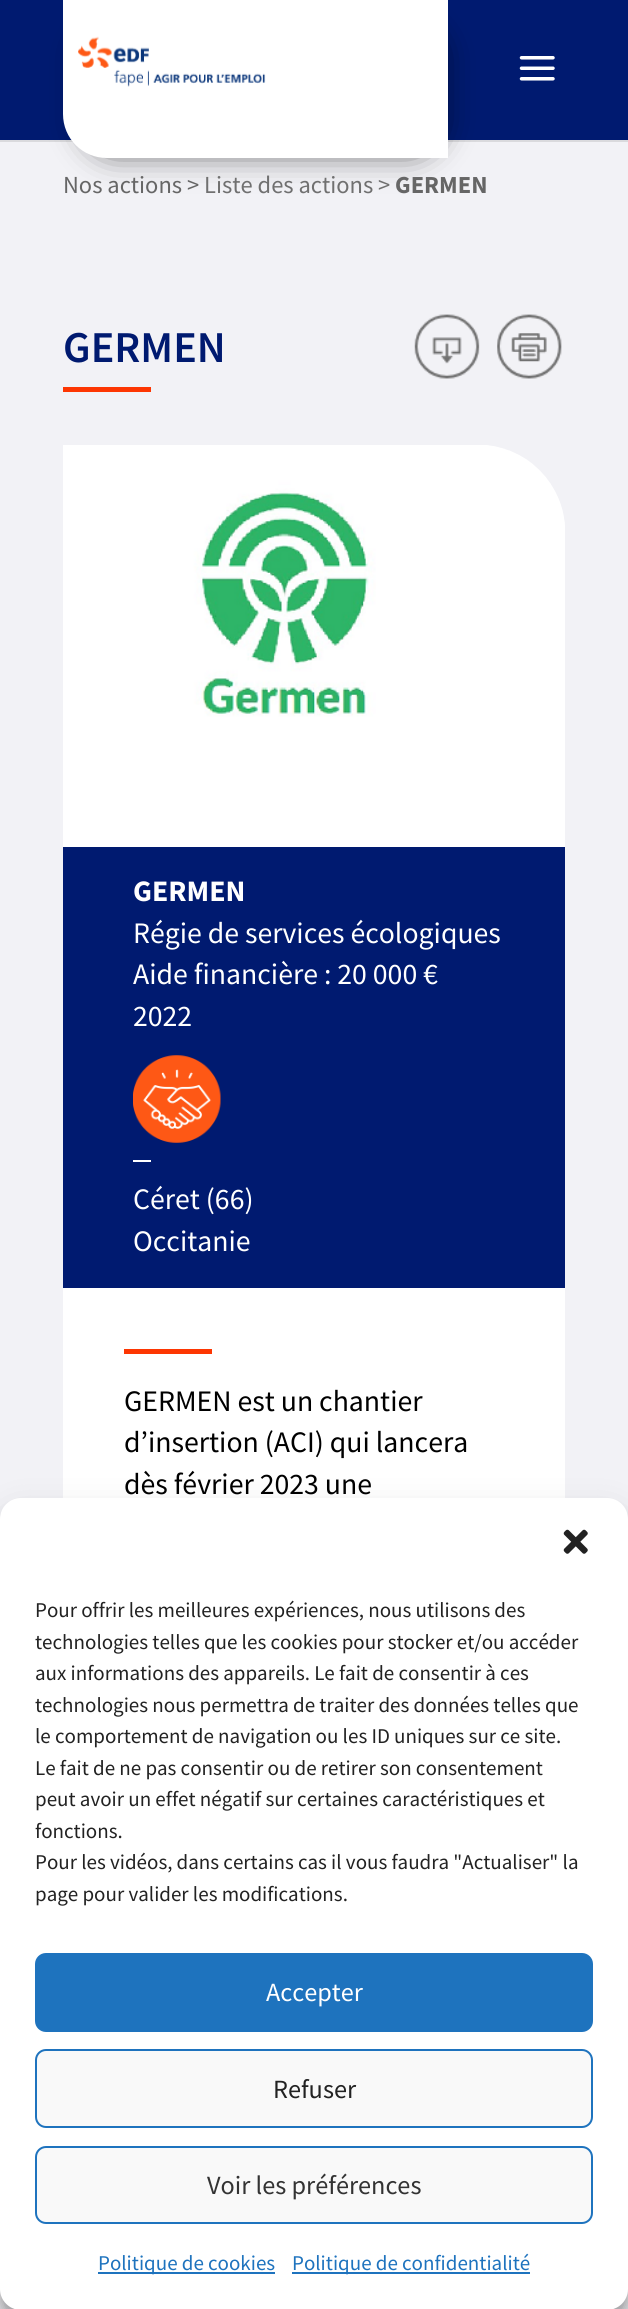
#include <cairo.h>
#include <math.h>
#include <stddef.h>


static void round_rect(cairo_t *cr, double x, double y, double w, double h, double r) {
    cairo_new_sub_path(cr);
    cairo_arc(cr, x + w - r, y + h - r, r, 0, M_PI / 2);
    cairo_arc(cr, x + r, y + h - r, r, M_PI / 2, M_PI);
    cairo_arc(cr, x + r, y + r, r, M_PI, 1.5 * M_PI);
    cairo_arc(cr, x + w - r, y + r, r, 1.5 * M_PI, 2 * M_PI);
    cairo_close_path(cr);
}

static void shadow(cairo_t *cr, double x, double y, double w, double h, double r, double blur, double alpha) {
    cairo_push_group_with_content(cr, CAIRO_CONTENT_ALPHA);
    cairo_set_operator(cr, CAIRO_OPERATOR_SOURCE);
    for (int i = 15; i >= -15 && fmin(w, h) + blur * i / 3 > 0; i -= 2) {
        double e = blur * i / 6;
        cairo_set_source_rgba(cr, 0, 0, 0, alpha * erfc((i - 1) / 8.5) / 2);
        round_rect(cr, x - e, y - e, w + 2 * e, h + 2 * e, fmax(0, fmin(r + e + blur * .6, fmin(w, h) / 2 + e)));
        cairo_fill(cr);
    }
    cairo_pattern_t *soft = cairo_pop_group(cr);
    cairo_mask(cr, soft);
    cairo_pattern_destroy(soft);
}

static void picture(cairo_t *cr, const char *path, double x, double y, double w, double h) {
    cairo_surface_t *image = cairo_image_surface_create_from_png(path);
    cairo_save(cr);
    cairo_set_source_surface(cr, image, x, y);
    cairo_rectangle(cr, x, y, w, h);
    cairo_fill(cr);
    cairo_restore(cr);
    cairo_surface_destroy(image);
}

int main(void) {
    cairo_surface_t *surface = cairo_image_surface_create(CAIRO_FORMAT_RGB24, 628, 2309);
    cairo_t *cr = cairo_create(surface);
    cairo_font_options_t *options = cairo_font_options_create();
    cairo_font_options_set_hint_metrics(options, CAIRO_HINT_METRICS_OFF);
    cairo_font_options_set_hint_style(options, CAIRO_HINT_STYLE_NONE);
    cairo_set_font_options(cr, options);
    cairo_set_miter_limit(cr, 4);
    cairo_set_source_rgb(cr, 0.949, 0.949, 0.961);
    cairo_paint(cr);
    cairo_set_source_rgb(cr, 0.855, 0.855, 0.867);
    cairo_rectangle(cr, 0, 140, 628, 2);
    cairo_fill(cr);
    cairo_set_source_rgb(cr, 0, 0.102, 0.439);
    cairo_rectangle(cr, 0, 0, 628, 140);
    cairo_fill(cr);
    cairo_set_source_rgb(cr, 0, 0, 0);
    shadow(cr, 84, 25, 357, 129, 30, 16, 0.6);
    cairo_set_source_rgb(cr, 1, 1, 1);
    cairo_new_path(cr);
    cairo_move_to(cr, 63, 0);
    cairo_line_to(cr, 448, 0);
    cairo_line_to(cr, 448, 158);
    cairo_line_to(cr, 107, 158);
    cairo_curve_to(cr, 82.5, 158, 63, 138.5, 63, 114);
    cairo_close_path(cr);
    cairo_fill(cr);
    picture(cr, "img1.png", 78, 36, 188, 51);
    picture(cr, "img2.png", 519, 56, 36, 25);
    cairo_select_font_face(cr, "Source Sans Pro", CAIRO_FONT_SLANT_NORMAL, CAIRO_FONT_WEIGHT_NORMAL);
    cairo_set_font_size(cr, 24.5);
    cairo_set_source_rgb(cr, 0.4, 0.4, 0.4);
    cairo_move_to(cr, 63, 193);
    cairo_show_text(cr, "Nos actions >");
    cairo_set_source_rgb(cr, 0.439, 0.439, 0.439);
    cairo_move_to(cr, 204, 193);
    cairo_show_text(cr, "Liste des actions >");
    cairo_select_font_face(cr, "Source Sans Pro", CAIRO_FONT_SLANT_NORMAL, CAIRO_FONT_WEIGHT_BOLD);
    cairo_set_source_rgb(cr, 0.4, 0.4, 0.4);
    cairo_move_to(cr, 395, 193);
    cairo_show_text(cr, "GERMEN");
    picture(cr, "img3.png", 414, 314, 66, 65);
    picture(cr, "img4.png", 497, 314, 65, 65);
    cairo_select_font_face(cr, "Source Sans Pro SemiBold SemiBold", CAIRO_FONT_SLANT_NORMAL, CAIRO_FONT_WEIGHT_NORMAL);
    cairo_set_font_size(cr, 44);
    cairo_set_source_rgb(cr, 0, 0.102, 0.439);
    cairo_move_to(cr, 63, 362);
    cairo_show_text(cr, "GERMEN");
    cairo_set_source_rgb(cr, 0.992, 0.212, 0.008);
    cairo_rectangle(cr, 63, 387, 88, 5);
    cairo_fill(cr);
    cairo_set_source_rgb(cr, 1, 1, 1);
    cairo_new_path(cr);
    cairo_move_to(cr, 63, 445);
    cairo_line_to(cr, 477, 445);
    cairo_curve_to(cr, 525.5, 445, 565, 484.5, 565, 533);
    cairo_line_to(cr, 565, 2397);
    cairo_line_to(cr, 63, 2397);
    cairo_close_path(cr);
    cairo_fill(cr);
    picture(cr, "img5.png", 63, 445, 502, 402);
    cairo_set_source_rgb(cr, 0, 0.102, 0.439);
    cairo_rectangle(cr, 63, 847, 502, 441);
    cairo_fill(cr);
    cairo_select_font_face(cr, "Source Sans Pro", CAIRO_FONT_SLANT_NORMAL, CAIRO_FONT_WEIGHT_BOLD);
    cairo_set_font_size(cr, 29.75);
    cairo_set_source_rgb(cr, 1, 1, 1);
    cairo_move_to(cr, 133, 901);
    cairo_show_text(cr, "GERMEN");
    cairo_select_font_face(cr, "Source Sans Pro", CAIRO_FONT_SLANT_NORMAL, CAIRO_FONT_WEIGHT_NORMAL);
    cairo_move_to(cr, 133, 943);
    cairo_show_text(cr, "Régie de services écologiques");
    cairo_move_to(cr, 133, 984);
    cairo_show_text(cr, "Aide financière : 20 000 €");
    cairo_move_to(cr, 133, 1026);
    cairo_show_text(cr, "2022");
    picture(cr, "img6.png", 133, 1055, 88, 88);
    cairo_rectangle(cr, 133, 1160, 18, 2);
    cairo_fill(cr);
    cairo_move_to(cr, 133, 1209);
    cairo_show_text(cr, "Céret (66)");
    cairo_move_to(cr, 133, 1251);
    cairo_show_text(cr, "Occitanie");
    cairo_set_source_rgb(cr, 0.992, 0.212, 0.008);
    cairo_rectangle(cr, 124, 1349, 88, 5);
    cairo_fill(cr);
    cairo_set_source_rgb(cr, 0, 0, 0);
    cairo_move_to(cr, 124, 1411);
    cairo_show_text(cr, "GERMEN est un chantier");
    cairo_move_to(cr, 124, 1452);
    cairo_show_text(cr, "d’insertion (ACI) qui lancera");
    cairo_move_to(cr, 124, 1494);
    cairo_show_text(cr, "dès février 2023 une");
    cairo_set_source_rgb(cr, 0, 0, 0);
    shadow(cr, 0, 1509, 628, 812, 21, 5, 0.23);
    shadow(cr, 0, 1516, 628, 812, 21, 17.5, 0.19);
    cairo_set_source_rgb(cr, 1, 1, 1);
    round_rect(cr, 0, 1498, 628, 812, 21);
    cairo_fill(cr);
    picture(cr, "img7.png", 563, 1529, 25, 25);
    cairo_set_font_size(cr, 21);
    cairo_set_source_rgb(cr, 0.133, 0.133, 0.133);
    cairo_move_to(cr, 35, 1617);
    cairo_show_text(cr, "Pour offrir les meilleures expériences, nous utilisons des");
    cairo_move_to(cr, 35, 1649);
    cairo_show_text(cr, "technologies telles que les cookies pour stocker et/ou accéder");
    cairo_move_to(cr, 35, 1680);
    cairo_show_text(cr, "aux informations des appareils. Le fait de consentir à ces");
    cairo_move_to(cr, 35, 1712);
    cairo_show_text(cr, "technologies nous permettra de traiter des données telles que");
    cairo_move_to(cr, 35, 1743);
    cairo_show_text(cr, "le comportement de navigation ou les ID uniques sur ce site.");
    cairo_move_to(cr, 35, 1775);
    cairo_show_text(cr, "Le fait de ne pas consentir ou de retirer son consentement");
    cairo_move_to(cr, 35, 1806);
    cairo_show_text(cr, "peut avoir un effet négatif sur certaines caractéristiques et");
    cairo_move_to(cr, 35, 1838);
    cairo_show_text(cr, "fonctions.");
    cairo_move_to(cr, 35, 1869);
    cairo_show_text(cr, "Pour les vidéos, dans certains cas il vous faudra \"Actualiser\" la");
    cairo_move_to(cr, 35, 1901);
    cairo_show_text(cr, "page pour valider les modifications.");
    cairo_set_source_rgb(cr, 0.118, 0.451, 0.745);
    round_rect(cr, 36, 1954, 556, 77, 10);
    cairo_fill_preserve(cr);
    cairo_stroke(cr);
    cairo_set_font_size(cr, 26.25);
    cairo_set_source_rgb(cr, 1, 1, 1);
    cairo_move_to(cr, 266, 2001);
    cairo_show_text(cr, "Accepter");
    cairo_set_source_rgb(cr, 0.976, 0.976, 0.976);
    round_rect(cr, 36, 2050, 556, 77, 10);
    cairo_fill_preserve(cr);
    cairo_set_source_rgb(cr, 0.118, 0.451, 0.745);
    cairo_stroke(cr);
    cairo_set_source_rgb(cr, 0.133, 0.133, 0.133);
    cairo_move_to(cr, 273, 2098);
    cairo_show_text(cr, "Refuser");
    cairo_set_source_rgb(cr, 0.976, 0.976, 0.976);
    round_rect(cr, 36, 2147, 556, 76, 10);
    cairo_fill_preserve(cr);
    cairo_set_source_rgb(cr, 0.118, 0.451, 0.745);
    cairo_stroke(cr);
    cairo_set_source_rgb(cr, 0.2, 0.2, 0.2);
    cairo_move_to(cr, 207, 2194);
    cairo_show_text(cr, "Voir les préférences");
    cairo_set_source_rgb(cr, 0.118, 0.451, 0.745);
    cairo_rectangle(cr, 98, 2272, 177, 2);
    cairo_fill(cr);
    cairo_set_font_size(cr, 21);
    cairo_move_to(cr, 98, 2270);
    cairo_show_text(cr, "Politique de cookies");
    cairo_rectangle(cr, 292, 2272, 238, 2);
    cairo_fill(cr);
    cairo_move_to(cr, 292, 2270);
    cairo_show_text(cr, "Politique de confidentialité");
    cairo_surface_write_to_png(surface, "page.png");
    cairo_font_options_destroy(options);
    cairo_destroy(cr);
    cairo_surface_destroy(surface);
    return 0;
}
